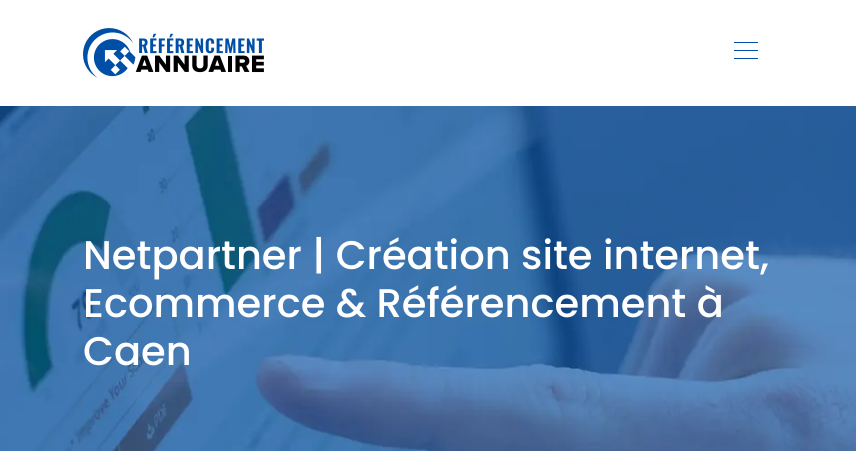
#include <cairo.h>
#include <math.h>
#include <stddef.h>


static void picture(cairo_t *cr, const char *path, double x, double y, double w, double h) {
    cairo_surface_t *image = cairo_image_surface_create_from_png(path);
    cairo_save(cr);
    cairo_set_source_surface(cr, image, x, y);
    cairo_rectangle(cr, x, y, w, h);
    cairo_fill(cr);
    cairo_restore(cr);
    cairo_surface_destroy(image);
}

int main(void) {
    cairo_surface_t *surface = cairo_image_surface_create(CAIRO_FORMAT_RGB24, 856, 451);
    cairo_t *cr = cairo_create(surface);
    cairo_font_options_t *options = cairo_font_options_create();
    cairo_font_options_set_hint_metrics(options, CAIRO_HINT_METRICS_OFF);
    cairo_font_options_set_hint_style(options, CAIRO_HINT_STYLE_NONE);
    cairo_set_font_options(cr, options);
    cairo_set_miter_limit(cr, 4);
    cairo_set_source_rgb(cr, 1, 1, 1);
    cairo_paint(cr);
    picture(cr, "img1.png", 83, 28, 181, 50);
    cairo_set_source_rgb(cr, 0, 0.31, 0.651);
    cairo_rectangle(cr, 734, 42, 24, 1);
    cairo_fill(cr);
    cairo_rectangle(cr, 734, 50, 24, 1);
    cairo_fill(cr);
    cairo_rectangle(cr, 734, 58, 24, 1);
    cairo_fill(cr);
    picture(cr, "img2.png", 0, 106, 856, 345);
    cairo_select_font_face(cr, "Poppins Medium", CAIRO_FONT_SLANT_NORMAL, CAIRO_FONT_WEIGHT_NORMAL);
    cairo_set_font_size(cr, 40);
    cairo_set_source_rgb(cr, 1, 1, 1);
    cairo_move_to(cr, 83, 269);
    cairo_show_text(cr, "Netpartner | Création site internet,");
    cairo_move_to(cr, 83, 317);
    cairo_show_text(cr, "Ecommerce & Référencement à");
    cairo_move_to(cr, 83, 365);
    cairo_show_text(cr, "Caen");
    cairo_surface_write_to_png(surface, "page.png");
    cairo_font_options_destroy(options);
    cairo_destroy(cr);
    cairo_surface_destroy(surface);
    return 0;
}
